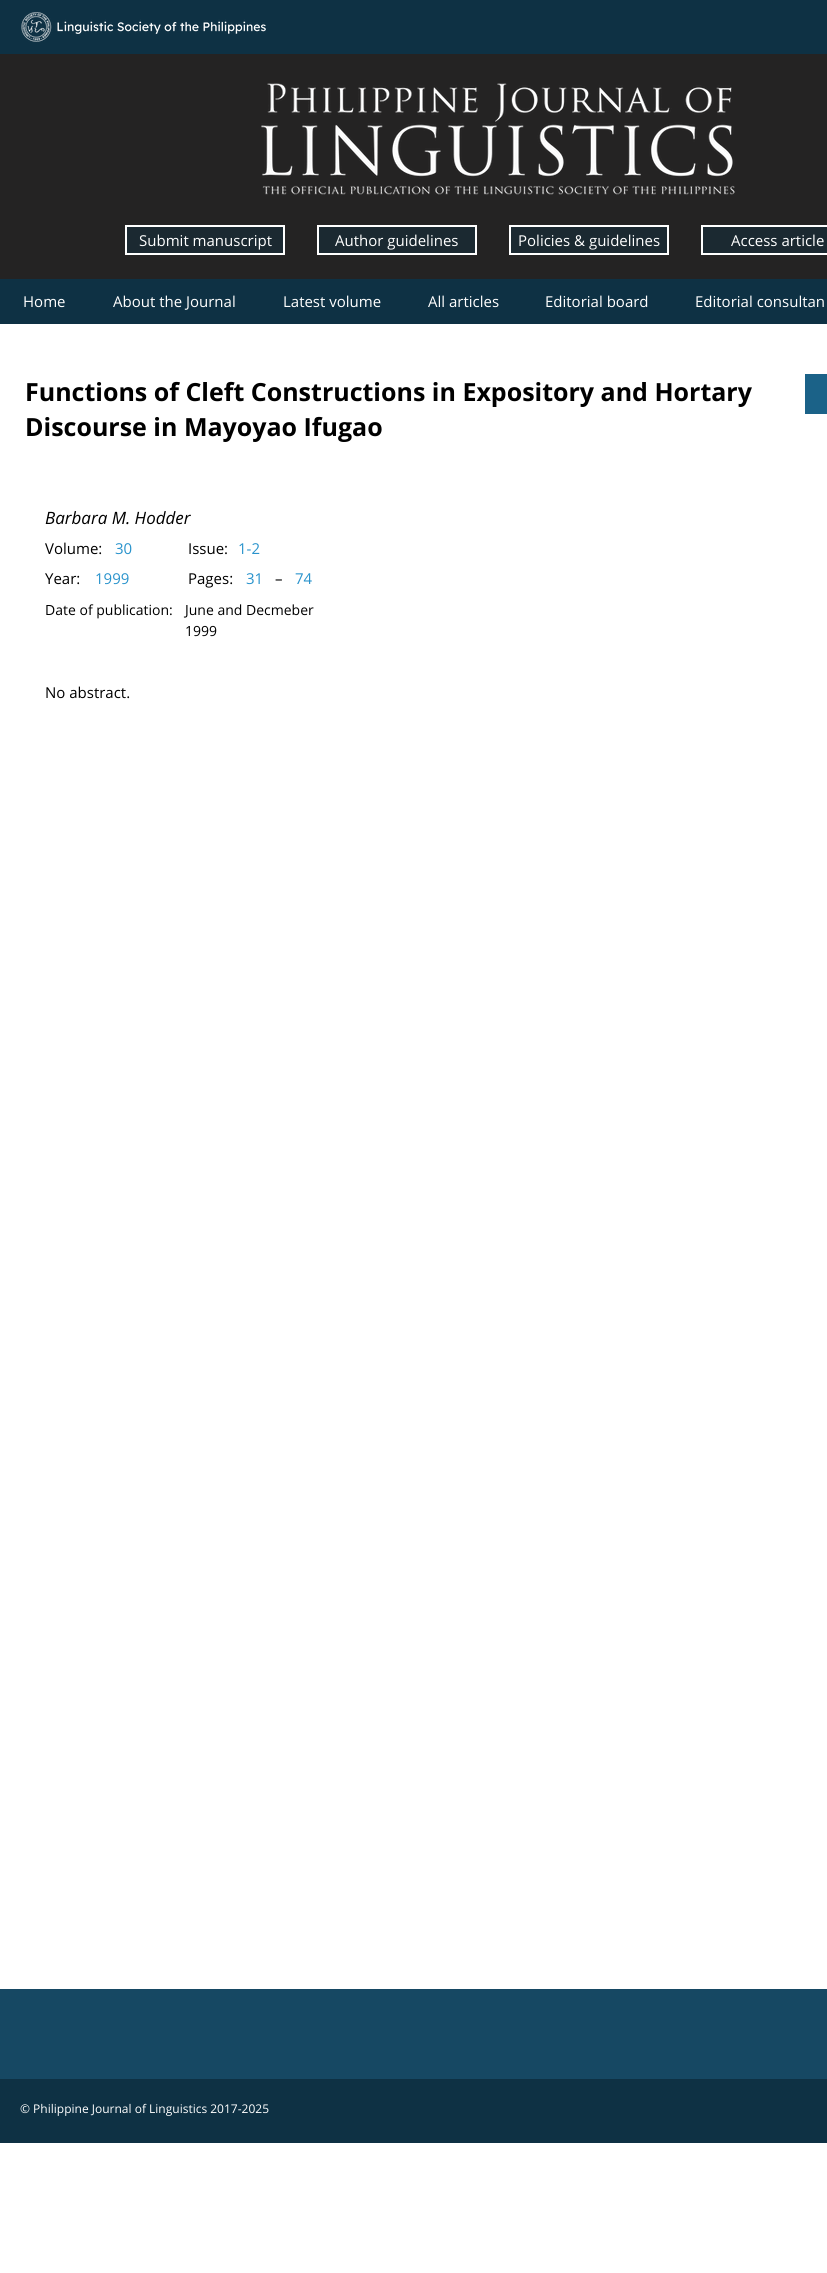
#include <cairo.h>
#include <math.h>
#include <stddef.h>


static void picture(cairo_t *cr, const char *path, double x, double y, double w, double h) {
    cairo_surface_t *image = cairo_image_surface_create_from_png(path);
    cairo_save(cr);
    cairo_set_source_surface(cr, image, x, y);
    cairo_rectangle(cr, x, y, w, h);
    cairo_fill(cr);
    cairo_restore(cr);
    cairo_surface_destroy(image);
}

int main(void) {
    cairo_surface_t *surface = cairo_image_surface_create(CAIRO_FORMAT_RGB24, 827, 2273);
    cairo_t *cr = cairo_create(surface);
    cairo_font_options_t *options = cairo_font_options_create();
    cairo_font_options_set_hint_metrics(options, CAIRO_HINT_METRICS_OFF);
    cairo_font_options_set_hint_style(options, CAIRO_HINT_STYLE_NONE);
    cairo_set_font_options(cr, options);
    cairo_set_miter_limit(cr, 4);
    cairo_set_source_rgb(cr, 1, 1, 1);
    cairo_paint(cr);
    cairo_set_source_rgb(cr, 0.055, 0.192, 0.267);
    cairo_rectangle(cr, 0, 0, 827, 54);
    cairo_fill(cr);
    picture(cr, "img1.png", 21, 12, 245, 30);
    cairo_set_source_rgb(cr, 0.141, 0.137, 0.137);
    cairo_rectangle(cr, 0, 54, 827, 225);
    cairo_fill(cr);
    picture(cr, "img2.png", 261, 83, 474, 112);
    cairo_set_source_rgb(cr, 0.106, 0.161, 0.192);
    cairo_rectangle(cr, 126, 226, 158, 28);
    cairo_fill_preserve(cr);
    cairo_set_source_rgb(cr, 1, 1, 1);
    cairo_stroke(cr);
    cairo_select_font_face(cr, "Open Sans", CAIRO_FONT_SLANT_NORMAL, CAIRO_FONT_WEIGHT_NORMAL);
    cairo_set_font_size(cr, 15);
    cairo_move_to(cr, 139, 246);
    cairo_show_text(cr, "Submit manuscript");
    cairo_set_source_rgb(cr, 0.106, 0.161, 0.192);
    cairo_rectangle(cr, 318, 226, 158, 28);
    cairo_fill_preserve(cr);
    cairo_set_source_rgb(cr, 1, 1, 1);
    cairo_stroke(cr);
    cairo_move_to(cr, 335, 246);
    cairo_show_text(cr, "Author guidelines");
    cairo_set_source_rgb(cr, 0.106, 0.161, 0.192);
    cairo_rectangle(cr, 510, 226, 158, 28);
    cairo_fill_preserve(cr);
    cairo_set_source_rgb(cr, 1, 1, 1);
    cairo_stroke(cr);
    cairo_move_to(cr, 518, 246);
    cairo_show_text(cr, "Policies & guidelines");
    cairo_set_source_rgb(cr, 0.106, 0.161, 0.192);
    cairo_rectangle(cr, 702, 226, 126, 28);
    cairo_fill_preserve(cr);
    cairo_set_source_rgb(cr, 1, 1, 1);
    cairo_stroke(cr);
    cairo_move_to(cr, 731, 246);
    cairo_show_text(cr, "Access article");
    cairo_set_source_rgb(cr, 0.055, 0.192, 0.267);
    cairo_rectangle(cr, 0, 279, 827, 45);
    cairo_fill(cr);
    cairo_set_source_rgb(cr, 1, 1, 1);
    cairo_move_to(cr, 23, 307);
    cairo_show_text(cr, "Home");
    cairo_move_to(cr, 113, 307);
    cairo_show_text(cr, "About the Journal");
    cairo_move_to(cr, 283, 307);
    cairo_show_text(cr, "Latest volume");
    cairo_move_to(cr, 428, 307);
    cairo_show_text(cr, "All articles");
    cairo_move_to(cr, 545, 307);
    cairo_show_text(cr, "Editorial board");
    cairo_move_to(cr, 695, 307);
    cairo_show_text(cr, "Editorial consultan");
    cairo_select_font_face(cr, "Open Sans", CAIRO_FONT_SLANT_NORMAL, CAIRO_FONT_WEIGHT_BOLD);
    cairo_set_font_size(cr, 25);
    cairo_set_source_rgb(cr, 0, 0, 0);
    cairo_move_to(cr, 25, 401);
    cairo_show_text(cr, "Functions of Cleft Constructions in Expository and Hortary");
    cairo_move_to(cr, 25, 436);
    cairo_show_text(cr, "Discourse in Mayoyao Ifugao");
    cairo_set_source_rgb(cr, 0.106, 0.384, 0.533);
    cairo_rectangle(cr, 805, 374, 22, 40);
    cairo_fill(cr);
    cairo_select_font_face(cr, "Open Sans", CAIRO_FONT_SLANT_ITALIC, CAIRO_FONT_WEIGHT_NORMAL);
    cairo_set_font_size(cr, 17);
    cairo_set_source_rgb(cr, 0, 0, 0);
    cairo_move_to(cr, 45, 524);
    cairo_show_text(cr, "Barbara M. Hodder");
    cairo_select_font_face(cr, "Open Sans", CAIRO_FONT_SLANT_NORMAL, CAIRO_FONT_WEIGHT_NORMAL);
    cairo_set_font_size(cr, 15);
    cairo_move_to(cr, 45, 554);
    cairo_show_text(cr, "Volume:");
    cairo_set_source_rgb(cr, 0.161, 0.576, 0.8);
    cairo_move_to(cr, 115, 554);
    cairo_show_text(cr, "30");
    cairo_set_source_rgb(cr, 0, 0, 0);
    cairo_move_to(cr, 188, 554);
    cairo_show_text(cr, "Issue:");
    cairo_set_source_rgb(cr, 0.161, 0.576, 0.8);
    cairo_move_to(cr, 238, 554);
    cairo_show_text(cr, "1-2");
    cairo_set_source_rgb(cr, 0, 0, 0);
    cairo_move_to(cr, 45, 584);
    cairo_show_text(cr, "Year:");
    cairo_set_source_rgb(cr, 0.161, 0.576, 0.8);
    cairo_move_to(cr, 95, 584);
    cairo_show_text(cr, "1999");
    cairo_set_source_rgb(cr, 0, 0, 0);
    cairo_move_to(cr, 188, 584);
    cairo_show_text(cr, "Pages:");
    cairo_set_source_rgb(cr, 0.161, 0.576, 0.8);
    cairo_move_to(cr, 246, 584);
    cairo_show_text(cr, "31");
    cairo_set_source_rgb(cr, 0, 0, 0);
    cairo_move_to(cr, 275, 584);
    cairo_show_text(cr, "–");
    cairo_set_source_rgb(cr, 0.161, 0.576, 0.8);
    cairo_move_to(cr, 295, 584);
    cairo_show_text(cr, "74");
    cairo_set_font_size(cr, 14);
    cairo_set_source_rgb(cr, 0, 0, 0);
    cairo_move_to(cr, 45, 615);
    cairo_show_text(cr, "Date of publication:");
    cairo_move_to(cr, 185, 615);
    cairo_show_text(cr, "June and Decmeber");
    cairo_move_to(cr, 185, 636);
    cairo_show_text(cr, "1999");
    cairo_set_font_size(cr, 15);
    cairo_move_to(cr, 45, 698);
    cairo_show_text(cr, "No abstract.");
    cairo_set_source_rgb(cr, 0.086, 0.282, 0.388);
    cairo_rectangle(cr, 0, 1989, 827, 90);
    cairo_fill(cr);
    cairo_set_source_rgb(cr, 0.055, 0.192, 0.267);
    cairo_rectangle(cr, 0, 2079, 827, 64);
    cairo_fill(cr);
    cairo_set_font_size(cr, 12);
    cairo_set_source_rgb(cr, 1, 1, 1);
    cairo_move_to(cr, 20, 2113);
    cairo_show_text(cr, "© Philippine Journal of Linguistics 2017-2025");
    cairo_surface_write_to_png(surface, "page.png");
    cairo_font_options_destroy(options);
    cairo_destroy(cr);
    cairo_surface_destroy(surface);
    return 0;
}
